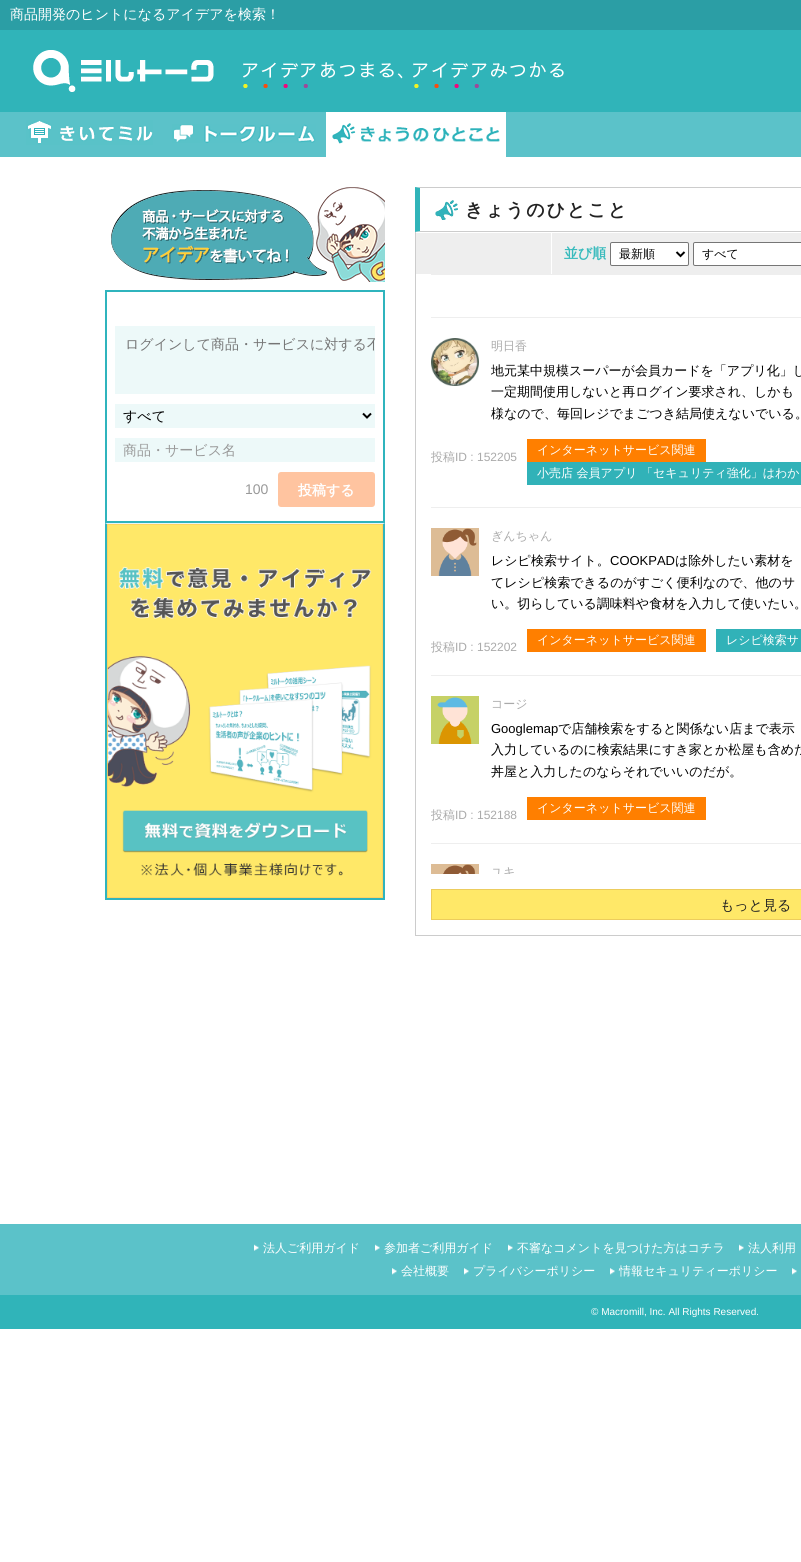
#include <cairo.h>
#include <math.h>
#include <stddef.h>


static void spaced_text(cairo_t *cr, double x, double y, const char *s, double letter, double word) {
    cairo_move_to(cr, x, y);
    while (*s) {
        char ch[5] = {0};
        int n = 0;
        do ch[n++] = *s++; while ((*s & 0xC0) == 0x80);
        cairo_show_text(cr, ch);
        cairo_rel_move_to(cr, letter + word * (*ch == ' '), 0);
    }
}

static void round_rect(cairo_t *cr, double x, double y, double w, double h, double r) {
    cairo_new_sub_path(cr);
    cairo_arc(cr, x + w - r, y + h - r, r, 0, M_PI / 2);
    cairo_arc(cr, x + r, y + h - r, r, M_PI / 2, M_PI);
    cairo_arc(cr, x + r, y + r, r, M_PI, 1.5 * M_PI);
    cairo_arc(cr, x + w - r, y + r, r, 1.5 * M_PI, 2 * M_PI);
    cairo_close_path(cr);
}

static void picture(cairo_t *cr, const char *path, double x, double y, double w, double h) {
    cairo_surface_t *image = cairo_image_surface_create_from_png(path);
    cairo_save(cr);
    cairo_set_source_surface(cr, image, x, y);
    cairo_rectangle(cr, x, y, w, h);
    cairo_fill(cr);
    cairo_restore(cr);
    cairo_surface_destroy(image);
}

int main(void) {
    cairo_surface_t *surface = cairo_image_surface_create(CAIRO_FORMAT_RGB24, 801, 1562);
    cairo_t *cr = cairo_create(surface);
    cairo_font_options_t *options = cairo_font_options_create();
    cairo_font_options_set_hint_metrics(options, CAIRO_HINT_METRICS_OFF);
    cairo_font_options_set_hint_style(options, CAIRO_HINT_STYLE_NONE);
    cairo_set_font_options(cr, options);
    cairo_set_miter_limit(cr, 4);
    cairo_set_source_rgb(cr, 1, 1, 1);
    cairo_paint(cr);
    cairo_set_source_rgb(cr, 0.169, 0.62, 0.647);
    cairo_rectangle(cr, 0, 0, 801, 30);
    cairo_fill(cr);
    cairo_select_font_face(cr, "WenQuanYi Zen Hei Medium", CAIRO_FONT_SLANT_NORMAL, CAIRO_FONT_WEIGHT_NORMAL);
    cairo_set_font_size(cr, 14);
    cairo_set_source_rgb(cr, 1, 1, 1);
    cairo_move_to(cr, 10, 19);
    cairo_show_text(cr, "商品開発のヒントになるアイデアを検索！");
    cairo_set_source_rgb(cr, 0.188, 0.706, 0.725);
    cairo_rectangle(cr, 0, 30, 801, 82);
    cairo_fill(cr);
    picture(cr, "img1.png", 33, 50, 531, 42);
    cairo_set_source_rgb(cr, 0.357, 0.761, 0.788);
    cairo_rectangle(cr, 0, 112, 801, 45);
    cairo_fill(cr);
    picture(cr, "img2.png", 26, 120, 127, 25);
    picture(cr, "img3.png", 172, 124, 144, 19);
    picture(cr, "img4.png", 326, 112, 180, 45);
    picture(cr, "img5.png", 111, 187, 274, 95);
    cairo_rectangle(cr, 106, 291, 278, 231);
    cairo_set_source_rgb(cr, 0.184, 0.706, 0.741);
    cairo_stroke(cr);
    cairo_set_source_rgb(cr, 0.929, 0.976, 0.976);
    cairo_rectangle(cr, 115, 326, 260, 68);
    cairo_fill(cr);
    cairo_save(cr);
    cairo_rectangle(cr, 115, 326, 260, 68);
    cairo_clip(cr);
    cairo_set_source_rgb(cr, 0.459, 0.459, 0.459);
    cairo_move_to(cr, 125, 349);
    cairo_show_text(cr, "ログインして商品・サービスに対する不");
    cairo_restore(cr);
    cairo_rectangle(cr, 115, 404, 260, 24);
    cairo_fill(cr);
    cairo_new_path(cr);
    cairo_move_to(cr, 363, 413.5);
    cairo_line_to(cr, 367, 417.5);
    cairo_line_to(cr, 371, 413.5);
    cairo_set_source_rgb(cr, 0, 0, 0);
    cairo_stroke(cr);
    cairo_move_to(cr, 123, 421);
    cairo_show_text(cr, "すべて");
    cairo_set_source_rgb(cr, 0.929, 0.976, 0.976);
    cairo_rectangle(cr, 115, 438, 260, 24);
    cairo_fill(cr);
    cairo_set_source_rgb(cr, 0.6, 0.6, 0.6);
    cairo_move_to(cr, 123, 455);
    cairo_show_text(cr, "商品・サービス名");
    cairo_select_font_face(cr, "Liberation Sans", CAIRO_FONT_SLANT_NORMAL, CAIRO_FONT_WEIGHT_NORMAL);
    cairo_move_to(cr, 245, 494);
    cairo_show_text(cr, "100");
    cairo_set_source_rgb(cr, 1, 0.769, 0.627);
    round_rect(cr, 278, 472, 97, 35, 3);
    cairo_fill(cr);
    cairo_select_font_face(cr, "WenQuanYi Zen Hei", CAIRO_FONT_SLANT_NORMAL, CAIRO_FONT_WEIGHT_BOLD);
    cairo_set_source_rgb(cr, 1, 1, 1);
    cairo_move_to(cr, 298, 495);
    cairo_show_text(cr, "投稿する");
    cairo_set_source_rgb(cr, 0.902, 0.961, 0.973);
    cairo_new_path(cr);
    cairo_move_to(cr, 105, 523);
    cairo_line_to(cr, 385, 523);
    cairo_line_to(cr, 383, 524);
    cairo_line_to(cr, 107, 524);
    cairo_close_path(cr);
    cairo_fill(cr);
    cairo_set_source_rgb(cr, 0.184, 0.706, 0.741);
    cairo_new_path(cr);
    cairo_move_to(cr, 385, 523);
    cairo_line_to(cr, 385, 900);
    cairo_line_to(cr, 383, 898);
    cairo_line_to(cr, 383, 524);
    cairo_close_path(cr);
    cairo_fill(cr);
    cairo_rectangle(cr, 105, 898, 280, 2);
    cairo_fill(cr);
    cairo_new_path(cr);
    cairo_move_to(cr, 105, 900);
    cairo_line_to(cr, 105, 523);
    cairo_line_to(cr, 107, 524);
    cairo_line_to(cr, 107, 898);
    cairo_close_path(cr);
    cairo_fill(cr);
    picture(cr, "img6.png", 107, 524, 276, 374);
    cairo_set_source_rgb(cr, 0.8, 0.8, 0.8);
    cairo_new_path(cr);
    cairo_move_to(cr, 415, 187);
    cairo_line_to(cr, 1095, 187);
    cairo_line_to(cr, 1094, 188);
    cairo_line_to(cr, 420, 188);
    cairo_close_path(cr);
    cairo_fill(cr);
    cairo_new_path(cr);
    cairo_move_to(cr, 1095, 232);
    cairo_line_to(cr, 415, 232);
    cairo_line_to(cr, 420, 231);
    cairo_line_to(cr, 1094, 231);
    cairo_close_path(cr);
    cairo_fill(cr);
    cairo_set_source_rgb(cr, 0.188, 0.706, 0.725);
    cairo_new_path(cr);
    cairo_move_to(cr, 415, 232);
    cairo_line_to(cr, 415, 187);
    cairo_line_to(cr, 420, 188);
    cairo_line_to(cr, 420, 231);
    cairo_close_path(cr);
    cairo_fill(cr);
    picture(cr, "img7.png", 435, 200, 23, 20);
    cairo_set_font_size(cr, 18);
    cairo_set_source_rgb(cr, 0.133, 0.133, 0.133);
    spaced_text(cr, 465, 216, "きょうのひとこと", 2, 0);
    cairo_set_source_rgb(cr, 0.933, 0.933, 0.933);
    cairo_rectangle(cr, 416, 233, 385, 41);
    cairo_fill(cr);
    cairo_set_source_rgb(cr, 1, 1, 1);
    cairo_rectangle(cr, 551, 233, 1, 41);
    cairo_fill(cr);
    cairo_set_font_size(cr, 14);
    cairo_set_source_rgb(cr, 0.224, 0.733, 0.741);
    cairo_move_to(cr, 564, 258);
    cairo_show_text(cr, "並び順");
    cairo_set_source_rgb(cr, 1, 1, 1);
    round_rect(cr, 610.5, 242.5, 78, 23, 1.5);
    cairo_fill_preserve(cr);
    cairo_set_source_rgb(cr, 0.463, 0.463, 0.463);
    cairo_set_line_width(cr, 1);
    cairo_stroke(cr);
    cairo_new_path(cr);
    cairo_move_to(cr, 676.5, 252);
    cairo_line_to(cr, 680.5, 256);
    cairo_line_to(cr, 684.5, 252);
    cairo_set_source_rgb(cr, 0, 0, 0);
    cairo_set_line_width(cr, 2);
    cairo_stroke(cr);
    cairo_select_font_face(cr, "WenQuanYi Zen Hei Medium", CAIRO_FONT_SLANT_NORMAL, CAIRO_FONT_WEIGHT_NORMAL);
    cairo_set_font_size(cr, 12);
    cairo_move_to(cr, 619, 258);
    cairo_show_text(cr, "最新順");
    cairo_set_source_rgb(cr, 1, 1, 1);
    round_rect(cr, 693.5, 242.5, 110, 23, 1.5);
    cairo_fill_preserve(cr);
    cairo_set_source_rgb(cr, 0.463, 0.463, 0.463);
    cairo_set_line_width(cr, 1);
    cairo_stroke(cr);
    cairo_set_source_rgb(cr, 0, 0, 0);
    cairo_move_to(cr, 702, 258);
    cairo_show_text(cr, "すべて");
    cairo_set_source_rgb(cr, 0.8, 0.8, 0.8);
    cairo_rectangle(cr, 415, 935, 386, 1);
    cairo_fill(cr);
    cairo_rectangle(cr, 415, 232, 1, 704);
    cairo_fill(cr);
    cairo_set_source_rgb(cr, 0.933, 0.933, 0.933);
    cairo_rectangle(cr, 431, 274, 370, 1);
    cairo_fill(cr);
    cairo_rectangle(cr, 431, 317, 370, 1);
    cairo_fill(cr);
    picture(cr, "img8.png", 431, 338, 48, 48);
    cairo_set_source_rgb(cr, 0.667, 0.667, 0.667);
    cairo_move_to(cr, 491, 350);
    cairo_show_text(cr, "明日香");
    cairo_set_font_size(cr, 13);
    cairo_set_source_rgb(cr, 0, 0, 0);
    cairo_move_to(cr, 491, 375);
    cairo_show_text(cr, "地元某中規模スーパーが会員カードを「アプリ化」し");
    cairo_move_to(cr, 491, 396);
    cairo_show_text(cr, "一定期間使用しないと再ログイン要求され、しかも");
    cairo_move_to(cr, 491, 418);
    cairo_show_text(cr, "様なので、毎回レジでまごつき結局使えないでいる。");
    cairo_set_font_size(cr, 12);
    cairo_set_source_rgb(cr, 0.667, 0.667, 0.667);
    cairo_move_to(cr, 431, 461);
    cairo_show_text(cr, "投稿");
    cairo_select_font_face(cr, "Liberation Sans", CAIRO_FONT_SLANT_NORMAL, CAIRO_FONT_WEIGHT_NORMAL);
    cairo_move_to(cr, 455, 461);
    cairo_show_text(cr, "ID : 152205");
    cairo_set_source_rgb(cr, 1, 0.498, 0);
    cairo_rectangle(cr, 527, 439, 179, 23);
    cairo_fill(cr);
    cairo_select_font_face(cr, "WenQuanYi Zen Hei Medium", CAIRO_FONT_SLANT_NORMAL, CAIRO_FONT_WEIGHT_NORMAL);
    cairo_set_source_rgb(cr, 1, 1, 1);
    cairo_move_to(cr, 537, 454);
    cairo_show_text(cr, "インターネットサービス関連");
    cairo_set_source_rgb(cr, 0.192, 0.698, 0.722);
    cairo_rectangle(cr, 527, 462, 274, 23);
    cairo_fill(cr);
    cairo_set_source_rgb(cr, 1, 1, 1);
    cairo_move_to(cr, 537, 477);
    cairo_show_text(cr, "小売店 会員アプリ 「セキュリティ強化」はわか");
    cairo_set_source_rgb(cr, 0.933, 0.933, 0.933);
    cairo_rectangle(cr, 431, 507, 370, 1);
    cairo_fill(cr);
    picture(cr, "img9.png", 431, 528, 48, 48);
    cairo_set_source_rgb(cr, 0.667, 0.667, 0.667);
    cairo_move_to(cr, 491, 540);
    cairo_show_text(cr, "ぎんちゃん");
    cairo_set_font_size(cr, 13);
    cairo_set_source_rgb(cr, 0, 0, 0);
    cairo_move_to(cr, 491, 565);
    cairo_show_text(cr, "レシピ検索サイト。");
    cairo_select_font_face(cr, "Liberation Sans", CAIRO_FONT_SLANT_NORMAL, CAIRO_FONT_WEIGHT_NORMAL);
    cairo_move_to(cr, 610, 565);
    cairo_show_text(cr, "COOKPAD");
    cairo_select_font_face(cr, "WenQuanYi Zen Hei Medium", CAIRO_FONT_SLANT_NORMAL, CAIRO_FONT_WEIGHT_NORMAL);
    cairo_move_to(cr, 675, 565);
    cairo_show_text(cr, "は除外したい素材を");
    cairo_move_to(cr, 491, 587);
    cairo_show_text(cr, "てレシピ検索できるのがすごく便利なので、他のサ");
    cairo_move_to(cr, 491, 608);
    cairo_show_text(cr, "い。切らしている調味料や食材を入力して使いたい。");
    cairo_set_font_size(cr, 12);
    cairo_set_source_rgb(cr, 0.667, 0.667, 0.667);
    cairo_move_to(cr, 431, 651);
    cairo_show_text(cr, "投稿");
    cairo_select_font_face(cr, "Liberation Sans", CAIRO_FONT_SLANT_NORMAL, CAIRO_FONT_WEIGHT_NORMAL);
    cairo_move_to(cr, 455, 651);
    cairo_show_text(cr, "ID : 152202");
    cairo_set_source_rgb(cr, 1, 0.498, 0);
    cairo_rectangle(cr, 527, 629, 179, 23);
    cairo_fill(cr);
    cairo_select_font_face(cr, "WenQuanYi Zen Hei Medium", CAIRO_FONT_SLANT_NORMAL, CAIRO_FONT_WEIGHT_NORMAL);
    cairo_set_source_rgb(cr, 1, 1, 1);
    cairo_move_to(cr, 537, 644);
    cairo_show_text(cr, "インターネットサービス関連");
    cairo_set_source_rgb(cr, 0.192, 0.698, 0.722);
    cairo_rectangle(cr, 716, 629, 85, 23);
    cairo_fill(cr);
    cairo_set_source_rgb(cr, 1, 1, 1);
    cairo_move_to(cr, 726, 644);
    cairo_show_text(cr, "レシピ検索サ");
    cairo_set_source_rgb(cr, 0.933, 0.933, 0.933);
    cairo_rectangle(cr, 431, 675, 370, 1);
    cairo_fill(cr);
    picture(cr, "img10.png", 431, 696, 48, 48);
    cairo_set_source_rgb(cr, 0.667, 0.667, 0.667);
    cairo_move_to(cr, 491, 708);
    cairo_show_text(cr, "コージ");
    cairo_select_font_face(cr, "Liberation Sans", CAIRO_FONT_SLANT_NORMAL, CAIRO_FONT_WEIGHT_NORMAL);
    cairo_set_font_size(cr, 13);
    cairo_set_source_rgb(cr, 0, 0, 0);
    cairo_move_to(cr, 491, 733);
    cairo_show_text(cr, "Googlemap");
    cairo_select_font_face(cr, "WenQuanYi Zen Hei Medium", CAIRO_FONT_SLANT_NORMAL, CAIRO_FONT_WEIGHT_NORMAL);
    cairo_move_to(cr, 558, 733);
    cairo_show_text(cr, "で店舗検索をすると関係ない店まで表示");
    cairo_move_to(cr, 491, 754);
    cairo_show_text(cr, "入力しているのに検索結果にすき家とか松屋も含めた");
    cairo_move_to(cr, 491, 776);
    cairo_show_text(cr, "丼屋と入力したのならそれでいいのだが。");
    cairo_set_font_size(cr, 12);
    cairo_set_source_rgb(cr, 0.667, 0.667, 0.667);
    cairo_move_to(cr, 431, 819);
    cairo_show_text(cr, "投稿");
    cairo_select_font_face(cr, "Liberation Sans", CAIRO_FONT_SLANT_NORMAL, CAIRO_FONT_WEIGHT_NORMAL);
    cairo_move_to(cr, 455, 819);
    cairo_show_text(cr, "ID : 152188");
    cairo_set_source_rgb(cr, 1, 0.498, 0);
    cairo_rectangle(cr, 527, 797, 179, 23);
    cairo_fill(cr);
    cairo_select_font_face(cr, "WenQuanYi Zen Hei Medium", CAIRO_FONT_SLANT_NORMAL, CAIRO_FONT_WEIGHT_NORMAL);
    cairo_set_source_rgb(cr, 1, 1, 1);
    cairo_move_to(cr, 537, 812);
    cairo_show_text(cr, "インターネットサービス関連");
    cairo_set_source_rgb(cr, 0.933, 0.933, 0.933);
    cairo_rectangle(cr, 431, 843, 370, 1);
    cairo_fill(cr);
    picture(cr, "img11.png", 431, 864, 48, 10);
    cairo_save(cr);
    cairo_rectangle(cr, 431, 844, 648, 30);
    cairo_clip(cr);
    cairo_set_source_rgb(cr, 0.667, 0.667, 0.667);
    cairo_move_to(cr, 491, 876);
    cairo_show_text(cr, "ユキ");
    cairo_restore(cr);
    cairo_set_source_rgb(cr, 1, 0.91, 0.408);
    cairo_rectangle(cr, 431.5, 889.5, 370, 30);
    cairo_fill_preserve(cr);
    cairo_set_source_rgb(cr, 0.925, 0.8, 0.365);
    cairo_stroke(cr);
    cairo_set_font_size(cr, 14);
    cairo_set_source_rgb(cr, 0.133, 0.133, 0.133);
    cairo_move_to(cr, 720, 910);
    cairo_show_text(cr, "もっと見る");
    cairo_set_source_rgb(cr, 0.357, 0.761, 0.788);
    cairo_rectangle(cr, 0, 1224, 801, 71);
    cairo_fill(cr);
    picture(cr, "img12.png", 254, 1244, 5, 7);
    cairo_set_font_size(cr, 12);
    cairo_set_source_rgb(cr, 1, 1, 1);
    cairo_move_to(cr, 263, 1252);
    cairo_show_text(cr, "法人ご利用ガイド");
    picture(cr, "img12.png", 375, 1244, 5, 7);
    cairo_move_to(cr, 384, 1252);
    cairo_show_text(cr, "参加者ご利用ガイド");
    picture(cr, "img12.png", 508, 1244, 5, 7);
    cairo_move_to(cr, 517, 1252);
    cairo_show_text(cr, "不審なコメントを見つけた方はコチラ");
    picture(cr, "img12.png", 739, 1244, 5, 7);
    cairo_move_to(cr, 748, 1252);
    cairo_show_text(cr, "法人利用");
    picture(cr, "img13.png", 392, 1268, 5, 7);
    cairo_move_to(cr, 401, 1275);
    cairo_show_text(cr, "会社概要");
    picture(cr, "img13.png", 464, 1268, 5, 7);
    cairo_move_to(cr, 473, 1275);
    cairo_show_text(cr, "プライバシーポリシー");
    picture(cr, "img13.png", 610, 1268, 5, 7);
    cairo_move_to(cr, 619, 1275);
    cairo_show_text(cr, "情報セキュリティーポリシー");
    picture(cr, "img13.png", 792, 1268, 5, 7);
    cairo_set_source_rgb(cr, 0.188, 0.706, 0.725);
    cairo_rectangle(cr, 0, 1295, 801, 34);
    cairo_fill(cr);
    cairo_select_font_face(cr, "Liberation Sans", CAIRO_FONT_SLANT_NORMAL, CAIRO_FONT_WEIGHT_NORMAL);
    cairo_set_font_size(cr, 10);
    cairo_set_source_rgb(cr, 1, 1, 1);
    cairo_move_to(cr, 591, 1315);
    cairo_show_text(cr, "© Macromill, Inc. All Rights Reserved.");
    cairo_surface_write_to_png(surface, "page.png");
    cairo_font_options_destroy(options);
    cairo_destroy(cr);
    cairo_surface_destroy(surface);
    return 0;
}
